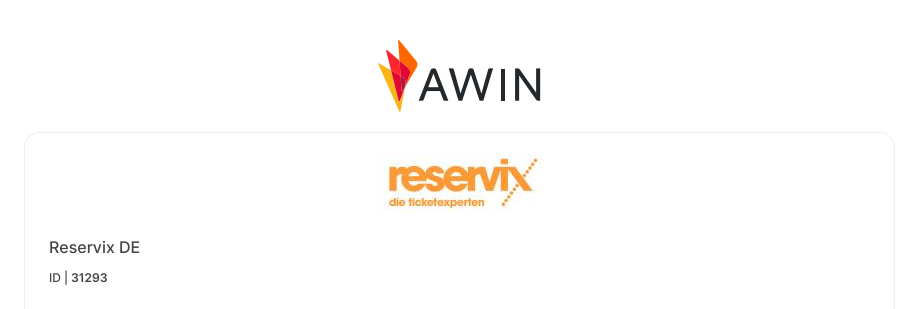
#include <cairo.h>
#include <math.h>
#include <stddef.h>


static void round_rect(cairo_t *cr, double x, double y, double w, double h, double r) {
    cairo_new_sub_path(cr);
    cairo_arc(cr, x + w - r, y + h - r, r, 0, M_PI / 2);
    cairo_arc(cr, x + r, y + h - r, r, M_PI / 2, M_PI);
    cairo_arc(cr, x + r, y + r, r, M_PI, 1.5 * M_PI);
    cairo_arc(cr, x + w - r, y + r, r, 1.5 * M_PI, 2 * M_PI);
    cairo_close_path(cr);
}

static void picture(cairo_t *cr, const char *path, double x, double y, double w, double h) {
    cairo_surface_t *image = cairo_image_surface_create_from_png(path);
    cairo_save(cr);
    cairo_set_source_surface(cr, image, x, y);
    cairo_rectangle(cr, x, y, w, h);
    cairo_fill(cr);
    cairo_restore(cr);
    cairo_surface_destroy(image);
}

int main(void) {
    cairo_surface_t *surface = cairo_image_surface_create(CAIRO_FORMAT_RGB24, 919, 309);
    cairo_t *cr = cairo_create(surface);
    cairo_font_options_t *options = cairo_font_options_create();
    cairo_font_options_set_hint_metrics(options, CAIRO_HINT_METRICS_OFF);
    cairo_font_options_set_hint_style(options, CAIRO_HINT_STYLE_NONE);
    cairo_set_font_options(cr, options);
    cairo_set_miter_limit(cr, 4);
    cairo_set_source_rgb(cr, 1, 1, 1);
    cairo_paint(cr);
    picture(cr, "img1.png", 378, 40, 163, 72);
    round_rect(cr, 24.5, 132.5, 870, 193, 15.5);
    cairo_set_source_rgb(cr, 0.933, 0.933, 0.933);
    cairo_set_line_width(cr, 1);
    cairo_stroke(cr);
    picture(cr, "img2.png", 376, 154, 168, 58);
    cairo_select_font_face(cr, "Inter Medium", CAIRO_FONT_SLANT_NORMAL, CAIRO_FONT_WEIGHT_NORMAL);
    cairo_set_font_size(cr, 16);
    cairo_set_source_rgb(cr, 0.267, 0.267, 0.267);
    cairo_move_to(cr, 49, 253);
    cairo_show_text(cr, "Reservix DE");
    cairo_set_font_size(cr, 12);
    cairo_move_to(cr, 49, 282);
    cairo_show_text(cr, "ID |");
    cairo_select_font_face(cr, "Inter SemiBold", CAIRO_FONT_SLANT_NORMAL, CAIRO_FONT_WEIGHT_NORMAL);
    cairo_move_to(cr, 71, 282);
    cairo_show_text(cr, "31293");
    cairo_surface_write_to_png(surface, "page.png");
    cairo_font_options_destroy(options);
    cairo_destroy(cr);
    cairo_surface_destroy(surface);
    return 0;
}
